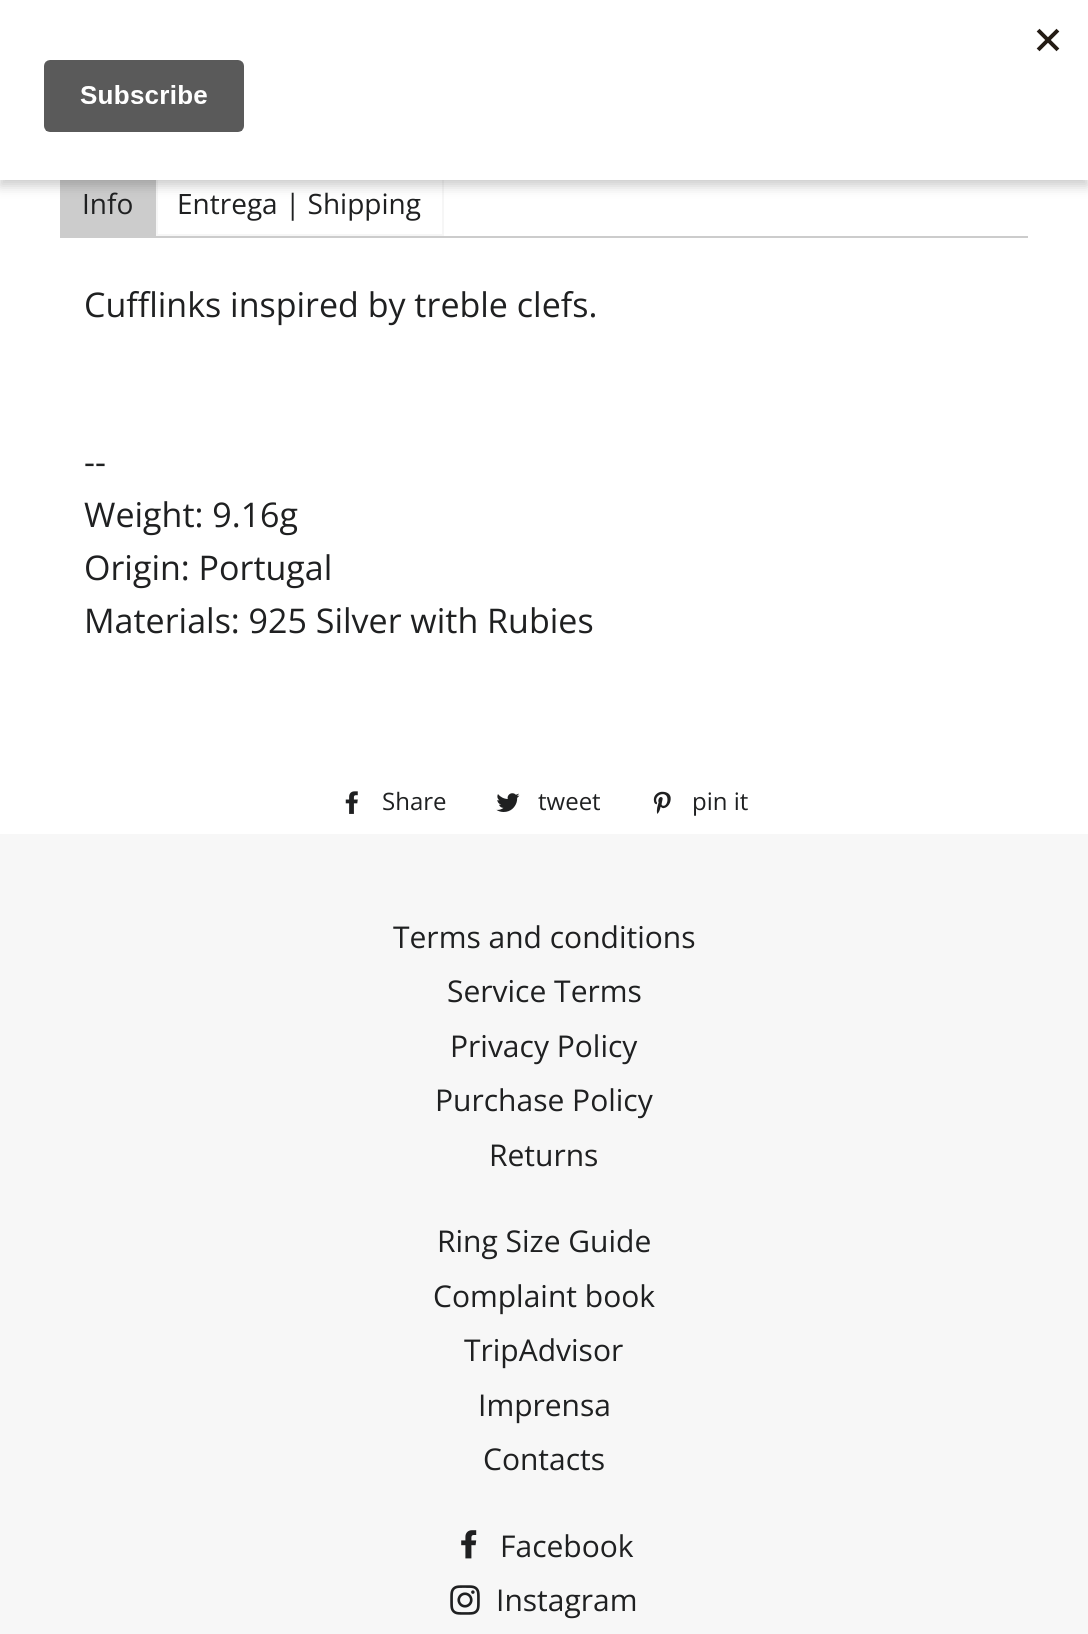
#include <cairo.h>
#include <math.h>
#include <stddef.h>


static void round_rect(cairo_t *cr, double x, double y, double w, double h, double r) {
    cairo_new_sub_path(cr);
    cairo_arc(cr, x + w - r, y + h - r, r, 0, M_PI / 2);
    cairo_arc(cr, x + r, y + h - r, r, M_PI / 2, M_PI);
    cairo_arc(cr, x + r, y + r, r, M_PI, 1.5 * M_PI);
    cairo_arc(cr, x + w - r, y + r, r, 1.5 * M_PI, 2 * M_PI);
    cairo_close_path(cr);
}

static void shadow(cairo_t *cr, double x, double y, double w, double h, double r, double blur, double alpha) {
    cairo_push_group_with_content(cr, CAIRO_CONTENT_ALPHA);
    cairo_set_operator(cr, CAIRO_OPERATOR_SOURCE);
    for (int i = 15; i >= -15 && fmin(w, h) + blur * i / 3 > 0; i -= 2) {
        double e = blur * i / 6;
        cairo_set_source_rgba(cr, 0, 0, 0, alpha * erfc((i - 1) / 8.5) / 2);
        round_rect(cr, x - e, y - e, w + 2 * e, h + 2 * e, fmax(0, fmin(r + e + blur * .6, fmin(w, h) / 2 + e)));
        cairo_fill(cr);
    }
    cairo_pattern_t *soft = cairo_pop_group(cr);
    cairo_mask(cr, soft);
    cairo_pattern_destroy(soft);
}

static void picture(cairo_t *cr, const char *path, double x, double y, double w, double h) {
    cairo_surface_t *image = cairo_image_surface_create_from_png(path);
    cairo_save(cr);
    cairo_set_source_surface(cr, image, x, y);
    cairo_rectangle(cr, x, y, w, h);
    cairo_fill(cr);
    cairo_restore(cr);
    cairo_surface_destroy(image);
}

int main(void) {
    cairo_surface_t *surface = cairo_image_surface_create(CAIRO_FORMAT_RGB24, 1088, 1634);
    cairo_t *cr = cairo_create(surface);
    cairo_font_options_t *options = cairo_font_options_create();
    cairo_font_options_set_hint_metrics(options, CAIRO_HINT_METRICS_OFF);
    cairo_font_options_set_hint_style(options, CAIRO_HINT_STYLE_NONE);
    cairo_set_font_options(cr, options);
    cairo_set_miter_limit(cr, 4);
    cairo_set_source_rgb(cr, 1, 1, 1);
    cairo_paint(cr);
    cairo_set_source_rgb(cr, 0.8, 0.8, 0.8);
    cairo_rectangle(cr, 60, 180, 96, 56);
    cairo_fill(cr);
    cairo_rectangle(cr, 157, 173, 286, 62);
    cairo_set_source_rgb(cr, 0.961, 0.961, 0.961);
    cairo_stroke(cr);
    cairo_set_source_rgb(cr, 0, 0, 0);
    shadow(cr, 0, 6, 1088, 180, 0, 6, 0.2);
    cairo_set_source_rgb(cr, 1, 1, 1);
    cairo_rectangle(cr, 0, 0, 1088, 180);
    cairo_fill(cr);
    picture(cr, "img1.png", 44, 28, 1016, 104);
    cairo_set_source_rgb(cr, 0.8, 0.8, 0.8);
    cairo_rectangle(cr, 60, 236, 968, 2);
    cairo_fill(cr);
    cairo_select_font_face(cr, "Open Sans", CAIRO_FONT_SLANT_NORMAL, CAIRO_FONT_WEIGHT_NORMAL);
    cairo_set_font_size(cr, 28);
    cairo_set_source_rgb(cr, 0.122, 0.125, 0.129);
    cairo_move_to(cr, 82, 214);
    cairo_show_text(cr, "Info");
    cairo_move_to(cr, 177, 214);
    cairo_show_text(cr, "Entrega | Shipping");
    cairo_set_font_size(cr, 34);
    cairo_move_to(cr, 84, 317);
    cairo_show_text(cr, "Cufflinks inspired by treble clefs.");
    cairo_move_to(cr, 84, 474);
    cairo_show_text(cr, "--");
    cairo_move_to(cr, 84, 527);
    cairo_show_text(cr, "Weight: 9.16g");
    cairo_move_to(cr, 84, 580);
    cairo_show_text(cr, "Origin: Portugal");
    cairo_move_to(cr, 84, 633);
    cairo_show_text(cr, "Materials: 925 Silver with Rubies");
    picture(cr, "img2.png", 345, 791, 13, 23);
    cairo_set_font_size(cr, 24);
    cairo_move_to(cr, 382, 810);
    cairo_show_text(cr, "Share");
    picture(cr, "img3.png", 496, 793, 24, 19);
    cairo_move_to(cr, 538, 810);
    cairo_show_text(cr, "tweet");
    picture(cr, "img4.png", 653, 791, 18, 23);
    cairo_move_to(cr, 692, 810);
    cairo_show_text(cr, "pin it");
    cairo_set_source_rgb(cr, 0.965, 0.965, 0.965);
    cairo_rectangle(cr, 0, 834, 1088, 800);
    cairo_fill(cr);
    cairo_set_font_size(cr, 30);
    cairo_set_source_rgb(cr, 0.122, 0.125, 0.129);
    cairo_move_to(cr, 393, 948);
    cairo_show_text(cr, "Terms and conditions");
    cairo_move_to(cr, 447, 1002);
    cairo_show_text(cr, "Service Terms");
    cairo_move_to(cr, 450, 1057);
    cairo_show_text(cr, "Privacy Policy");
    cairo_move_to(cr, 435, 1111);
    cairo_show_text(cr, "Purchase Policy");
    cairo_move_to(cr, 489, 1166);
    cairo_show_text(cr, "Returns");
    cairo_move_to(cr, 437, 1252);
    cairo_show_text(cr, "Ring Size Guide");
    cairo_move_to(cr, 433, 1307);
    cairo_show_text(cr, "Complaint book");
    cairo_move_to(cr, 464, 1361);
    cairo_show_text(cr, "TripAdvisor");
    cairo_move_to(cr, 478, 1416);
    cairo_show_text(cr, "Imprensa");
    cairo_move_to(cr, 483, 1470);
    cairo_show_text(cr, "Contacts");
    picture(cr, "img5.png", 461, 1530, 16, 29);
    cairo_move_to(cr, 500, 1557);
    cairo_show_text(cr, "Facebook");
    picture(cr, "img6.png", 450, 1585, 30, 30);
    cairo_move_to(cr, 496, 1611);
    cairo_show_text(cr, "Instagram");
    cairo_surface_write_to_png(surface, "page.png");
    cairo_font_options_destroy(options);
    cairo_destroy(cr);
    cairo_surface_destroy(surface);
    return 0;
}
